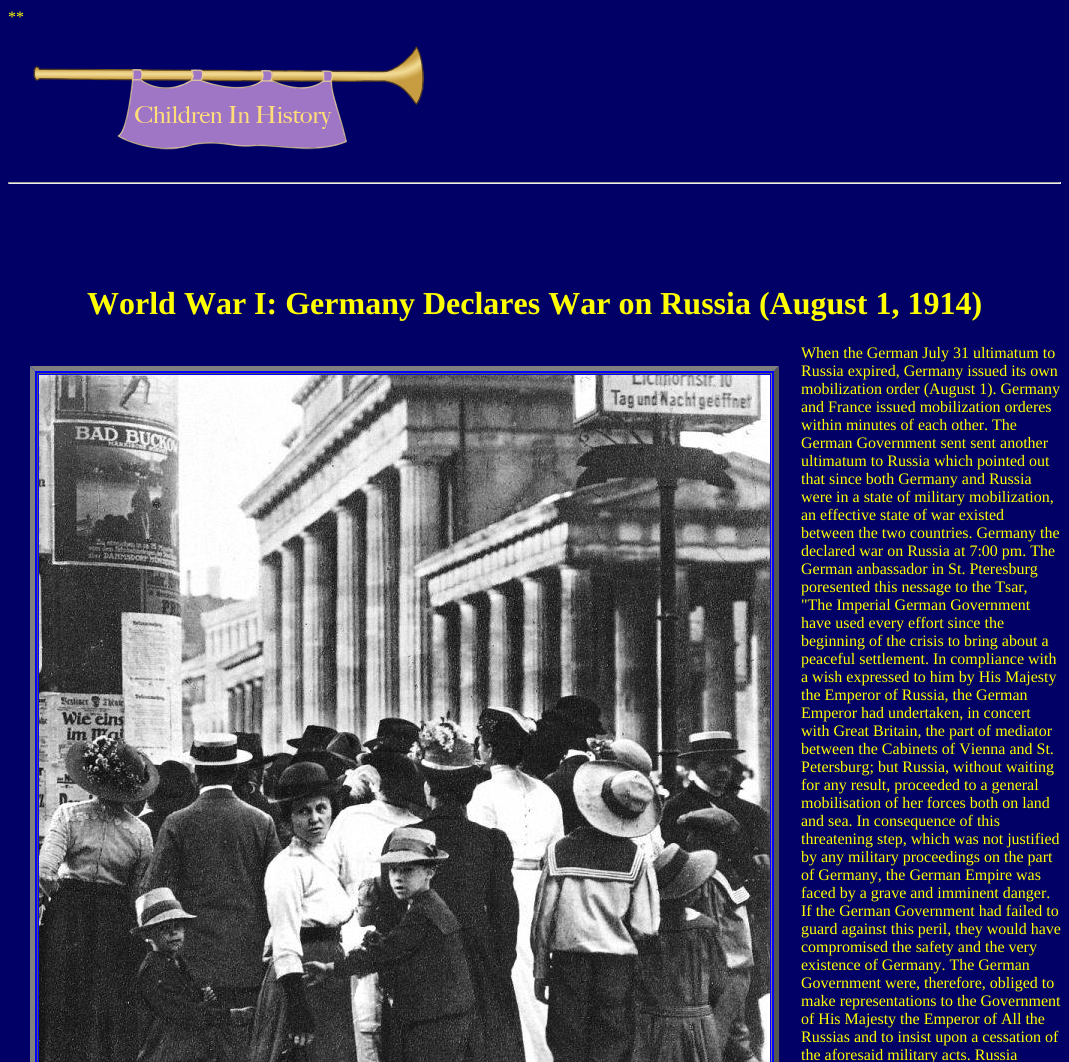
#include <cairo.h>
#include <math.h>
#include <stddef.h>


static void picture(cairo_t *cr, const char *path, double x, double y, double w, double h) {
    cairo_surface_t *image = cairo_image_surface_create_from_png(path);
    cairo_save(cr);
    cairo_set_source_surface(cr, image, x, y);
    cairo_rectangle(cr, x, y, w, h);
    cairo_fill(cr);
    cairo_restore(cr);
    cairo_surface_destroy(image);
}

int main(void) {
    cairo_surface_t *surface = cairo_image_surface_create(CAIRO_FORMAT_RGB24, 1069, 1062);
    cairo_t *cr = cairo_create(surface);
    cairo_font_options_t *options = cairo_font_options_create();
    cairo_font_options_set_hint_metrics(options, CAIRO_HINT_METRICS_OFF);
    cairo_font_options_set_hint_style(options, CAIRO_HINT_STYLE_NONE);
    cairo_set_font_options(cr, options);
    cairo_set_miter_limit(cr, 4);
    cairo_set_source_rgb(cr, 0, 0, 0.4);
    cairo_paint(cr);
    cairo_select_font_face(cr, "Liberation Serif", CAIRO_FONT_SLANT_NORMAL, CAIRO_FONT_WEIGHT_NORMAL);
    cairo_set_font_size(cr, 16);
    cairo_set_source_rgb(cr, 1, 1, 0);
    cairo_move_to(cr, 8, 22);
    cairo_show_text(cr, "**");
    picture(cr, "img1.png", 33, 46, 392, 104);
    cairo_set_source_rgb(cr, 0.624, 0.624, 0.624);
    cairo_rectangle(cr, 8, 182, 1053, 1);
    cairo_fill(cr);
    cairo_set_source_rgb(cr, 0.933, 0.933, 0.933);
    cairo_rectangle(cr, 1060, 182, 1, 2);
    cairo_fill(cr);
    cairo_rectangle(cr, 8, 183, 1053, 1);
    cairo_fill(cr);
    cairo_set_source_rgb(cr, 0.624, 0.624, 0.624);
    cairo_rectangle(cr, 8, 182, 1, 2);
    cairo_fill(cr);
    cairo_select_font_face(cr, "Liberation Serif", CAIRO_FONT_SLANT_NORMAL, CAIRO_FONT_WEIGHT_BOLD);
    cairo_set_font_size(cr, 32);
    cairo_set_source_rgb(cr, 1, 1, 0);
    cairo_move_to(cr, 87, 314);
    cairo_show_text(cr, "World War I: Germany Declares War on Russia (August 1, 1914)");
    cairo_set_source_rgb(cr, 0, 0, 1);
    cairo_rectangle(cr, 30, 366, 749, 696);
    cairo_fill(cr);
    cairo_set_source_rgb(cr, 0.502, 0.502, 0.502);
    cairo_new_path(cr);
    cairo_move_to(cr, 30, 366);
    cairo_line_to(cr, 779, 366);
    cairo_line_to(cr, 774, 371);
    cairo_line_to(cr, 35, 371);
    cairo_close_path(cr);
    cairo_fill(cr);
    cairo_set_source_rgb(cr, 0.333, 0.333, 0.333);
    cairo_new_path(cr);
    cairo_move_to(cr, 779, 366);
    cairo_line_to(cr, 779, 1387);
    cairo_line_to(cr, 774, 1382);
    cairo_line_to(cr, 774, 371);
    cairo_close_path(cr);
    cairo_fill(cr);
    cairo_set_source_rgb(cr, 0.502, 0.502, 0.502);
    cairo_new_path(cr);
    cairo_move_to(cr, 30, 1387);
    cairo_line_to(cr, 30, 366);
    cairo_line_to(cr, 35, 371);
    cairo_line_to(cr, 35, 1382);
    cairo_close_path(cr);
    cairo_fill(cr);
    cairo_set_source_rgb(cr, 0.333, 0.333, 0.333);
    cairo_rectangle(cr, 37, 373, 735, 1);
    cairo_fill(cr);
    cairo_set_source_rgb(cr, 0.502, 0.502, 0.502);
    cairo_rectangle(cr, 771, 373, 1, 689);
    cairo_fill(cr);
    cairo_set_source_rgb(cr, 0.333, 0.333, 0.333);
    cairo_rectangle(cr, 37, 373, 1, 689);
    cairo_fill(cr);
    picture(cr, "img2.png", 39, 375, 731, 687);
    cairo_select_font_face(cr, "Liberation Serif", CAIRO_FONT_SLANT_NORMAL, CAIRO_FONT_WEIGHT_NORMAL);
    cairo_set_font_size(cr, 16);
    cairo_set_source_rgb(cr, 1, 1, 0);
    cairo_move_to(cr, 801, 358);
    cairo_show_text(cr, "When the German July 31 ultimatum to");
    cairo_move_to(cr, 801, 376);
    cairo_show_text(cr, "Russia expired, Germany issued its own");
    cairo_move_to(cr, 801, 394);
    cairo_show_text(cr, "mobilization order (August 1). Germany");
    cairo_move_to(cr, 801, 412);
    cairo_show_text(cr, "and France issued mobilization orderes");
    cairo_move_to(cr, 801, 430);
    cairo_show_text(cr, "within minutes of each other. The");
    cairo_move_to(cr, 801, 448);
    cairo_show_text(cr, "German Government sent sent another");
    cairo_move_to(cr, 801, 466);
    cairo_show_text(cr, "ultimatum to Russia which pointed out");
    cairo_move_to(cr, 801, 484);
    cairo_show_text(cr, "that since both Germany and Russia");
    cairo_move_to(cr, 801, 502);
    cairo_show_text(cr, "were in a state of military mobilization,");
    cairo_move_to(cr, 801, 520);
    cairo_show_text(cr, "an effective state of war existed");
    cairo_move_to(cr, 801, 538);
    cairo_show_text(cr, "between the two countries. Germany the");
    cairo_move_to(cr, 801, 556);
    cairo_show_text(cr, "declared war on Russia at 7:00 pm. The");
    cairo_move_to(cr, 801, 574);
    cairo_show_text(cr, "German anbassador in St. Pteresburg");
    cairo_move_to(cr, 801, 592);
    cairo_show_text(cr, "poresented this nessage to the Tsar,");
    cairo_move_to(cr, 801, 610);
    cairo_show_text(cr, "\"The Imperial German Government");
    cairo_move_to(cr, 801, 628);
    cairo_show_text(cr, "have used every effort since the");
    cairo_move_to(cr, 801, 646);
    cairo_show_text(cr, "beginning of the crisis to bring about a");
    cairo_move_to(cr, 801, 664);
    cairo_show_text(cr, "peaceful settlement. In compliance with");
    cairo_move_to(cr, 801, 682);
    cairo_show_text(cr, "a wish expressed to him by His Majesty");
    cairo_move_to(cr, 801, 700);
    cairo_show_text(cr, "the Emperor of Russia, the German");
    cairo_move_to(cr, 801, 718);
    cairo_show_text(cr, "Emperor had undertaken, in concert");
    cairo_move_to(cr, 801, 736);
    cairo_show_text(cr, "with Great Britain, the part of mediator");
    cairo_move_to(cr, 801, 754);
    cairo_show_text(cr, "between the Cabinets of Vienna and St.");
    cairo_move_to(cr, 801, 772);
    cairo_show_text(cr, "Petersburg; but Russia, without waiting");
    cairo_move_to(cr, 801, 790);
    cairo_show_text(cr, "for any result, proceeded to a general");
    cairo_move_to(cr, 801, 808);
    cairo_show_text(cr, "mobilisation of her forces both on land");
    cairo_move_to(cr, 801, 826);
    cairo_show_text(cr, "and sea. In consequence of this");
    cairo_move_to(cr, 801, 844);
    cairo_show_text(cr, "threatening step, which was not justified");
    cairo_move_to(cr, 801, 862);
    cairo_show_text(cr, "by any military proceedings on the part");
    cairo_move_to(cr, 801, 880);
    cairo_show_text(cr, "of Germany, the German Empire was");
    cairo_move_to(cr, 801, 898);
    cairo_show_text(cr, "faced by a grave and imminent danger.");
    cairo_move_to(cr, 801, 916);
    cairo_show_text(cr, "If the German Government had failed to");
    cairo_move_to(cr, 801, 934);
    cairo_show_text(cr, "guard against this peril, they would have");
    cairo_move_to(cr, 801, 952);
    cairo_show_text(cr, "compromised the safety and the very");
    cairo_move_to(cr, 801, 970);
    cairo_show_text(cr, "existence of Germany. The German");
    cairo_move_to(cr, 801, 988);
    cairo_show_text(cr, "Government were, therefore, obliged to");
    cairo_move_to(cr, 801, 1006);
    cairo_show_text(cr, "make representations to the Government");
    cairo_move_to(cr, 801, 1024);
    cairo_show_text(cr, "of His Majesty the Emperor of All the");
    cairo_move_to(cr, 801, 1042);
    cairo_show_text(cr, "Russias and to insist upon a cessation of");
    cairo_move_to(cr, 801, 1060);
    cairo_show_text(cr, "the aforesaid military acts. Russia");
    cairo_surface_write_to_png(surface, "page.png");
    cairo_font_options_destroy(options);
    cairo_destroy(cr);
    cairo_surface_destroy(surface);
    return 0;
}
